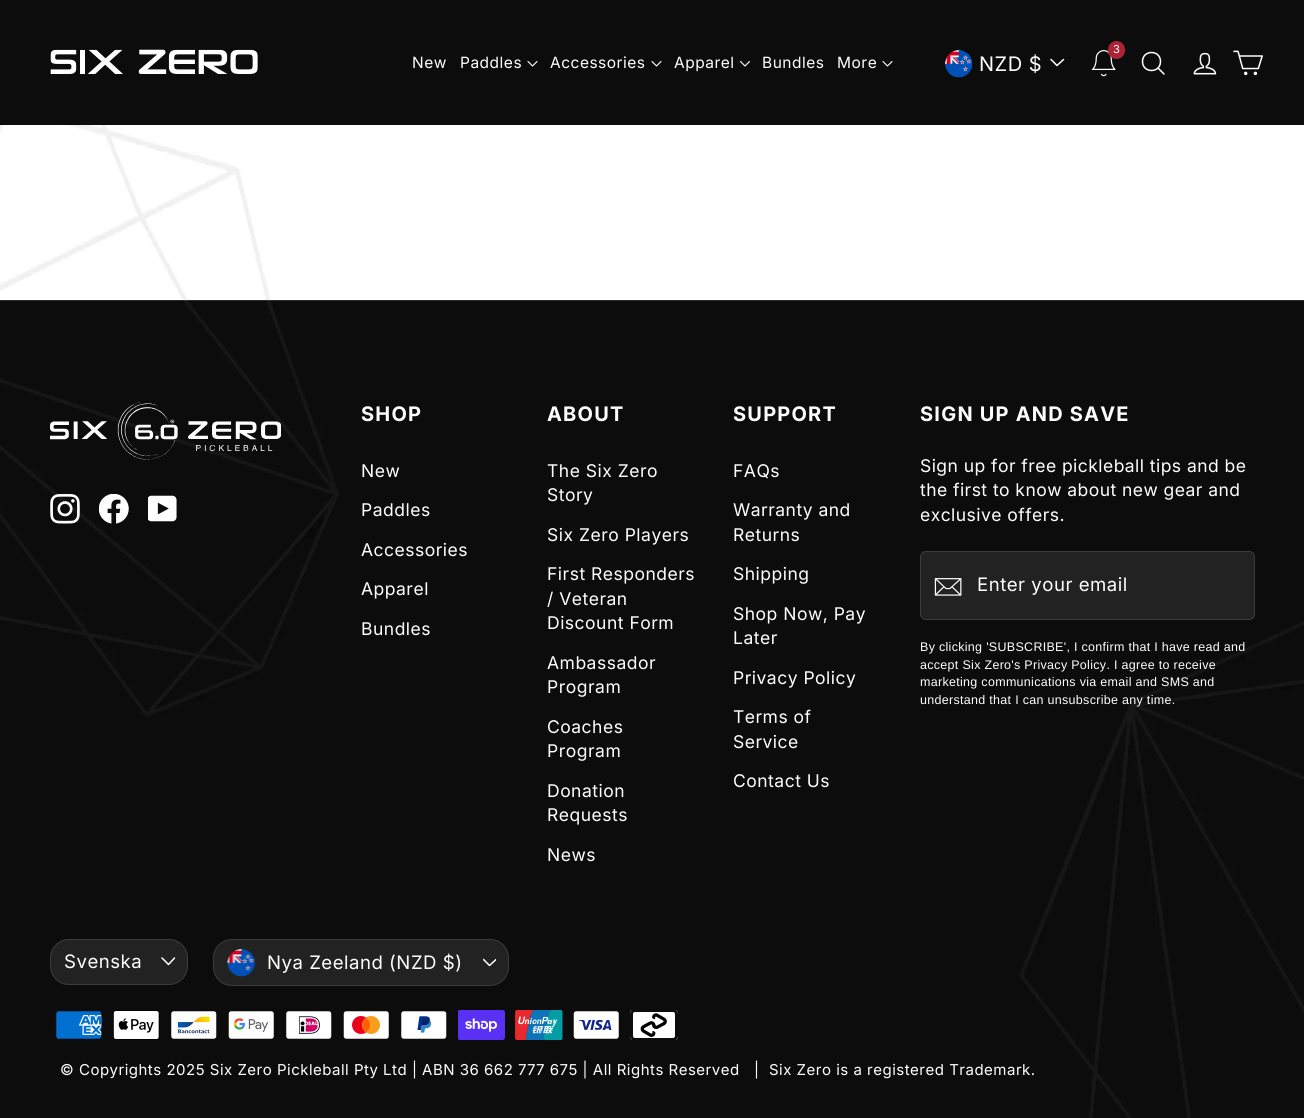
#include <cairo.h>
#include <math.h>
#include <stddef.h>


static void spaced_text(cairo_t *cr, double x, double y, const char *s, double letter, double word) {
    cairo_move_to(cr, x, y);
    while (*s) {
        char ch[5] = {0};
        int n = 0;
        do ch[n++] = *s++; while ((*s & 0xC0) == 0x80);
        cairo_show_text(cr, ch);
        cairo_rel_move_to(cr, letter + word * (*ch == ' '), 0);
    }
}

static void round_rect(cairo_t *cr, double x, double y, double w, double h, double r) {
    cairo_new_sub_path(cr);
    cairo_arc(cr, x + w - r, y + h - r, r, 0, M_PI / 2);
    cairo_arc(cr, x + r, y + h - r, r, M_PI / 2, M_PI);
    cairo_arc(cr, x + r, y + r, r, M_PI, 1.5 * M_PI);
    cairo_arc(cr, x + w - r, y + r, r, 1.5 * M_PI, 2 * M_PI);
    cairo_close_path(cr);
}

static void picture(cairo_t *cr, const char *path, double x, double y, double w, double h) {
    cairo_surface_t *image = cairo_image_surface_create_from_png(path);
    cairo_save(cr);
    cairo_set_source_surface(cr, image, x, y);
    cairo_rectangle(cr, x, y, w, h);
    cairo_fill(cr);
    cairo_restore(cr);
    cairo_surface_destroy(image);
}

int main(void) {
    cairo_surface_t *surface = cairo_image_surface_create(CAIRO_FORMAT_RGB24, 1304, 1118);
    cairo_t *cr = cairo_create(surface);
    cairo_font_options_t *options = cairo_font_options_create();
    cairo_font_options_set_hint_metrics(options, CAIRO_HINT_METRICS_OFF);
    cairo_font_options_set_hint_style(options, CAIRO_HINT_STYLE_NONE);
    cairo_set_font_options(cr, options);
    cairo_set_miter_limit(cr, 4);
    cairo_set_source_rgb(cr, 1, 1, 1);
    cairo_paint(cr);
    cairo_set_source_rgb(cr, 0.047, 0.047, 0.047);
    cairo_rectangle(cr, 0, 0, 1304, 125);
    cairo_fill(cr);
    picture(cr, "img1.png", 50, 49, 208, 25);
    cairo_select_font_face(cr, "Inter", CAIRO_FONT_SLANT_NORMAL, CAIRO_FONT_WEIGHT_NORMAL);
    cairo_set_font_size(cr, 15.5);
    cairo_set_source_rgb(cr, 1, 1, 1);
    spaced_text(cr, 412, 68, "New", 0.5, 0);
    spaced_text(cr, 460, 68, "Paddles", 0.5, 0);
    cairo_new_path(cr);
    cairo_move_to(cr, 528, 61.5);
    cairo_line_to(cr, 532.5, 66);
    cairo_line_to(cr, 537, 61.5);
    cairo_set_line_width(cr, 1.1);
    cairo_set_line_cap(cr, CAIRO_LINE_CAP_ROUND);
    cairo_set_line_join(cr, CAIRO_LINE_JOIN_ROUND);
    cairo_stroke(cr);
    spaced_text(cr, 550, 68, "Accessories", 0.5, 0);
    cairo_new_path(cr);
    cairo_move_to(cr, 652, 61.5);
    cairo_line_to(cr, 656.5, 66);
    cairo_line_to(cr, 661, 61.5);
    cairo_stroke(cr);
    spaced_text(cr, 674, 68, "Apparel", 0.5, 0);
    cairo_new_path(cr);
    cairo_move_to(cr, 740.5, 61.5);
    cairo_line_to(cr, 745, 66);
    cairo_line_to(cr, 749.5, 61.5);
    cairo_stroke(cr);
    spaced_text(cr, 762, 68, "Bundles", 0.5, 0);
    spaced_text(cr, 837, 68, "More", 0.5, 0);
    cairo_new_path(cr);
    cairo_move_to(cr, 883, 61.5);
    cairo_line_to(cr, 887.5, 66);
    cairo_line_to(cr, 892, 61.5);
    cairo_stroke(cr);
    picture(cr, "img2.png", 1091, 50, 25, 27);
    cairo_set_source_rgb(cr, 0.675, 0.137, 0.212);
    round_rect(cr, 1108, 41, 17, 18, 8.5);
    cairo_fill(cr);
    cairo_set_font_size(cr, 11);
    cairo_set_source_rgb(cr, 1, 1, 1);
    spaced_text(cr, 1113, 53, "3", 0.5, 0);
    cairo_new_path(cr);
    cairo_move_to(cr, 1160.5, 61.5);
    cairo_curve_to(cr, 1160.5, 73.5, 1142.5, 73.5, 1142.5, 61.5);
    cairo_curve_to(cr, 1142.5, 49.5, 1160.5, 49.5, 1160.5, 61.5);
    cairo_close_path(cr);
    cairo_move_to(cr, 1164, 74);
    cairo_line_to(cr, 1158, 68);
    cairo_set_line_width(cr, 1.5);
    cairo_stroke(cr);
    picture(cr, "img3.png", 1193, 52, 24, 23);
    picture(cr, "img4.png", 1233, 50, 30, 26);
    picture(cr, "img5.png", 945, 50, 28, 28);
    cairo_set_font_size(cr, 20);
    spaced_text(cr, 979, 71, "NZD $", 0.5, 0);
    cairo_new_path(cr);
    cairo_move_to(cr, 1051, 59.5);
    cairo_line_to(cr, 1057, 65.5);
    cairo_line_to(cr, 1063.5, 59.5);
    cairo_stroke(cr);
    picture(cr, "img6.png", 0, 125, 270, 175);
    picture(cr, "img7.png", 0, 300, 1304, 818);
    picture(cr, "img8.png", 50, 402, 231, 58);
    picture(cr, "img9.png", 50, 494, 30, 30);
    picture(cr, "img10.png", 99, 494, 30, 30);
    picture(cr, "img11.png", 148, 495, 29, 27);
    cairo_select_font_face(cr, "Inter", CAIRO_FONT_SLANT_NORMAL, CAIRO_FONT_WEIGHT_BOLD);
    spaced_text(cr, 361, 421, "SHOP", 1.25, 0);
    cairo_select_font_face(cr, "Inter", CAIRO_FONT_SLANT_NORMAL, CAIRO_FONT_WEIGHT_NORMAL);
    cairo_set_font_size(cr, 17.5);
    spaced_text(cr, 361, 477, "New", 0.5, 0);
    spaced_text(cr, 361, 516, "Paddles", 0.5, 0);
    spaced_text(cr, 361, 556, "Accessories", 0.5, 0);
    spaced_text(cr, 361, 595, "Apparel", 0.5, 0);
    spaced_text(cr, 361, 635, "Bundles", 0.5, 0);
    cairo_select_font_face(cr, "Inter", CAIRO_FONT_SLANT_NORMAL, CAIRO_FONT_WEIGHT_BOLD);
    cairo_set_font_size(cr, 20);
    spaced_text(cr, 547, 421, "ABOUT", 1.25, 0);
    cairo_select_font_face(cr, "Inter", CAIRO_FONT_SLANT_NORMAL, CAIRO_FONT_WEIGHT_NORMAL);
    cairo_set_font_size(cr, 17.5);
    spaced_text(cr, 547, 477, "The Six Zero", 0.5, 0);
    spaced_text(cr, 547, 501, "Story", 0.5, 0);
    spaced_text(cr, 547, 541, "Six Zero Players", 0.5, 0);
    spaced_text(cr, 547, 580, "First Responders", 0.5, 0);
    spaced_text(cr, 547, 605, "/ Veteran", 0.5, 0);
    spaced_text(cr, 547, 629, "Discount Form", 0.5, 0);
    spaced_text(cr, 547, 669, "Ambassador", 0.5, 0);
    spaced_text(cr, 547, 693, "Program", 0.5, 0);
    spaced_text(cr, 547, 733, "Coaches", 0.5, 0);
    spaced_text(cr, 547, 757, "Program", 0.5, 0);
    spaced_text(cr, 547, 797, "Donation", 0.5, 0);
    spaced_text(cr, 547, 821, "Requests", 0.5, 0);
    spaced_text(cr, 547, 861, "News", 0.5, 0);
    cairo_select_font_face(cr, "Inter", CAIRO_FONT_SLANT_NORMAL, CAIRO_FONT_WEIGHT_BOLD);
    cairo_set_font_size(cr, 20);
    spaced_text(cr, 733, 421, "SUPPORT", 1.25, 0);
    cairo_select_font_face(cr, "Inter", CAIRO_FONT_SLANT_NORMAL, CAIRO_FONT_WEIGHT_NORMAL);
    cairo_set_font_size(cr, 17.5);
    spaced_text(cr, 733, 477, "FAQs", 0.5, 0);
    spaced_text(cr, 733, 516, "Warranty and", 0.5, 0);
    spaced_text(cr, 733, 541, "Returns", 0.5, 0);
    spaced_text(cr, 733, 580, "Shipping", 0.5, 0);
    spaced_text(cr, 733, 620, "Shop Now, Pay", 0.5, 0);
    spaced_text(cr, 733, 644, "Later", 0.5, 0);
    spaced_text(cr, 733, 684, "Privacy Policy", 0.5, 0);
    spaced_text(cr, 733, 723, "Terms of", 0.5, 0);
    spaced_text(cr, 733, 748, "Service", 0.5, 0);
    spaced_text(cr, 733, 787, "Contact Us", 0.5, 0);
    cairo_select_font_face(cr, "Inter", CAIRO_FONT_SLANT_NORMAL, CAIRO_FONT_WEIGHT_BOLD);
    cairo_set_font_size(cr, 20);
    spaced_text(cr, 920, 421, "SIGN UP AND SAVE", 1.25, 0);
    cairo_select_font_face(cr, "Inter", CAIRO_FONT_SLANT_NORMAL, CAIRO_FONT_WEIGHT_NORMAL);
    cairo_set_font_size(cr, 17.5);
    spaced_text(cr, 920, 472, "Sign up for free pickleball tips and be", 0.45, 0);
    spaced_text(cr, 920, 496, "the first to know about new gear and", 0.45, 0);
    spaced_text(cr, 920, 521, "exclusive offers.", 0.45, 0);
    cairo_set_source_rgb(cr, 0.133, 0.133, 0.133);
    round_rect(cr, 920, 551, 335, 69, 6);
    cairo_fill(cr);
    round_rect(cr, 920.5, 551.5, 334, 68, 5.5);
    cairo_set_source_rgba(cr, 1, 1, 1, 0.12);
    cairo_set_line_width(cr, 1);
    cairo_set_line_cap(cr, CAIRO_LINE_CAP_BUTT);
    cairo_set_line_join(cr, CAIRO_LINE_JOIN_MITER);
    cairo_stroke(cr);
    picture(cr, "img12.png", 934, 578, 28, 18);
    cairo_set_font_size(cr, 18.6);
    cairo_set_source_rgb(cr, 1, 1, 1);
    spaced_text(cr, 977, 591, "Enter your email", 0.5, 0);
    cairo_select_font_face(cr, "Liberation Sans", CAIRO_FONT_SLANT_NORMAL, CAIRO_FONT_WEIGHT_NORMAL);
    cairo_set_font_size(cr, 12.5);
    spaced_text(cr, 920, 651, "By clicking 'SUBSCRIBE', I confirm that I have read and", 0.3, 0);
    spaced_text(cr, 920, 669, "accept Six Zero's Privacy Policy. I agree to receive", 0.3, 0);
    spaced_text(cr, 920, 686, "marketing communications via email and SMS and", 0.3, 0);
    spaced_text(cr, 920, 704, "understand that I can unsubscribe any time.", 0.3, 0);
    cairo_set_source_rgb(cr, 0.133, 0.133, 0.133);
    round_rect(cr, 50, 939, 138, 46, 19);
    cairo_fill(cr);
    round_rect(cr, 50.5, 939.5, 137, 45, 18.5);
    cairo_set_source_rgba(cr, 1, 1, 1, 0.12);
    cairo_stroke(cr);
    cairo_select_font_face(cr, "Inter", CAIRO_FONT_SLANT_NORMAL, CAIRO_FONT_WEIGHT_NORMAL);
    cairo_set_font_size(cr, 18.6);
    cairo_set_source_rgb(cr, 1, 1, 1);
    spaced_text(cr, 64, 968, "Svenska", 0.5, 0);
    cairo_new_path(cr);
    cairo_move_to(cr, 162, 958);
    cairo_line_to(cr, 168.5, 964.5);
    cairo_line_to(cr, 174.5, 958);
    cairo_set_line_width(cr, 1.5);
    cairo_set_line_cap(cr, CAIRO_LINE_CAP_ROUND);
    cairo_set_line_join(cr, CAIRO_LINE_JOIN_ROUND);
    cairo_stroke(cr);
    cairo_set_source_rgb(cr, 0.133, 0.133, 0.133);
    round_rect(cr, 213, 939, 296, 47, 19);
    cairo_fill(cr);
    round_rect(cr, 213.5, 939.5, 295, 46, 18.5);
    cairo_set_source_rgba(cr, 1, 1, 1, 0.12);
    cairo_set_line_width(cr, 1);
    cairo_set_line_cap(cr, CAIRO_LINE_CAP_BUTT);
    cairo_set_line_join(cr, CAIRO_LINE_JOIN_MITER);
    cairo_stroke(cr);
    picture(cr, "img13.png", 227, 949, 29, 28);
    cairo_set_source_rgb(cr, 1, 1, 1);
    spaced_text(cr, 267, 969, "Nya Zeeland (NZD $)", 0.5, 0);
    cairo_save(cr);
    cairo_rectangle(cr, 483, 956, 13, 14);
    cairo_clip(cr);
    cairo_new_path(cr);
    cairo_move_to(cr, 483.5, 959.5);
    cairo_line_to(cr, 489.5, 965.5);
    cairo_line_to(cr, 496, 959.5);
    cairo_set_line_width(cr, 1.5);
    cairo_set_line_cap(cr, CAIRO_LINE_CAP_ROUND);
    cairo_set_line_join(cr, CAIRO_LINE_JOIN_ROUND);
    cairo_stroke(cr);
    cairo_restore(cr);
    picture(cr, "img14.png", 56, 1011, 46, 28);
    picture(cr, "img15.png", 113, 1010, 47, 30);
    picture(cr, "img16.png", 171, 1011, 46, 28);
    picture(cr, "img17.png", 228, 1011, 46, 28);
    picture(cr, "img18.png", 286, 1011, 46, 28);
    picture(cr, "img19.png", 343, 1011, 46, 28);
    picture(cr, "img20.png", 401, 1011, 46, 28);
    picture(cr, "img21.png", 458, 1010, 47, 30);
    picture(cr, "img22.png", 515, 1010, 48, 30);
    picture(cr, "img23.png", 573, 1011, 46, 28);
    picture(cr, "img24.png", 630, 1010, 48, 30);
    cairo_set_font_size(cr, 15);
    spaced_text(cr, 60, 1075, "© Copyrights 2025 Six Zero Pickleball Pty Ltd | ABN 36 662 777 675 | All Rights Reserved", 0.5, 0);
    spaced_text(cr, 754, 1075, "|  Six Zero is a registered Trademark.", 0.5, 0);
    cairo_surface_write_to_png(surface, "page.png");
    cairo_font_options_destroy(options);
    cairo_destroy(cr);
    cairo_surface_destroy(surface);
    return 0;
}
